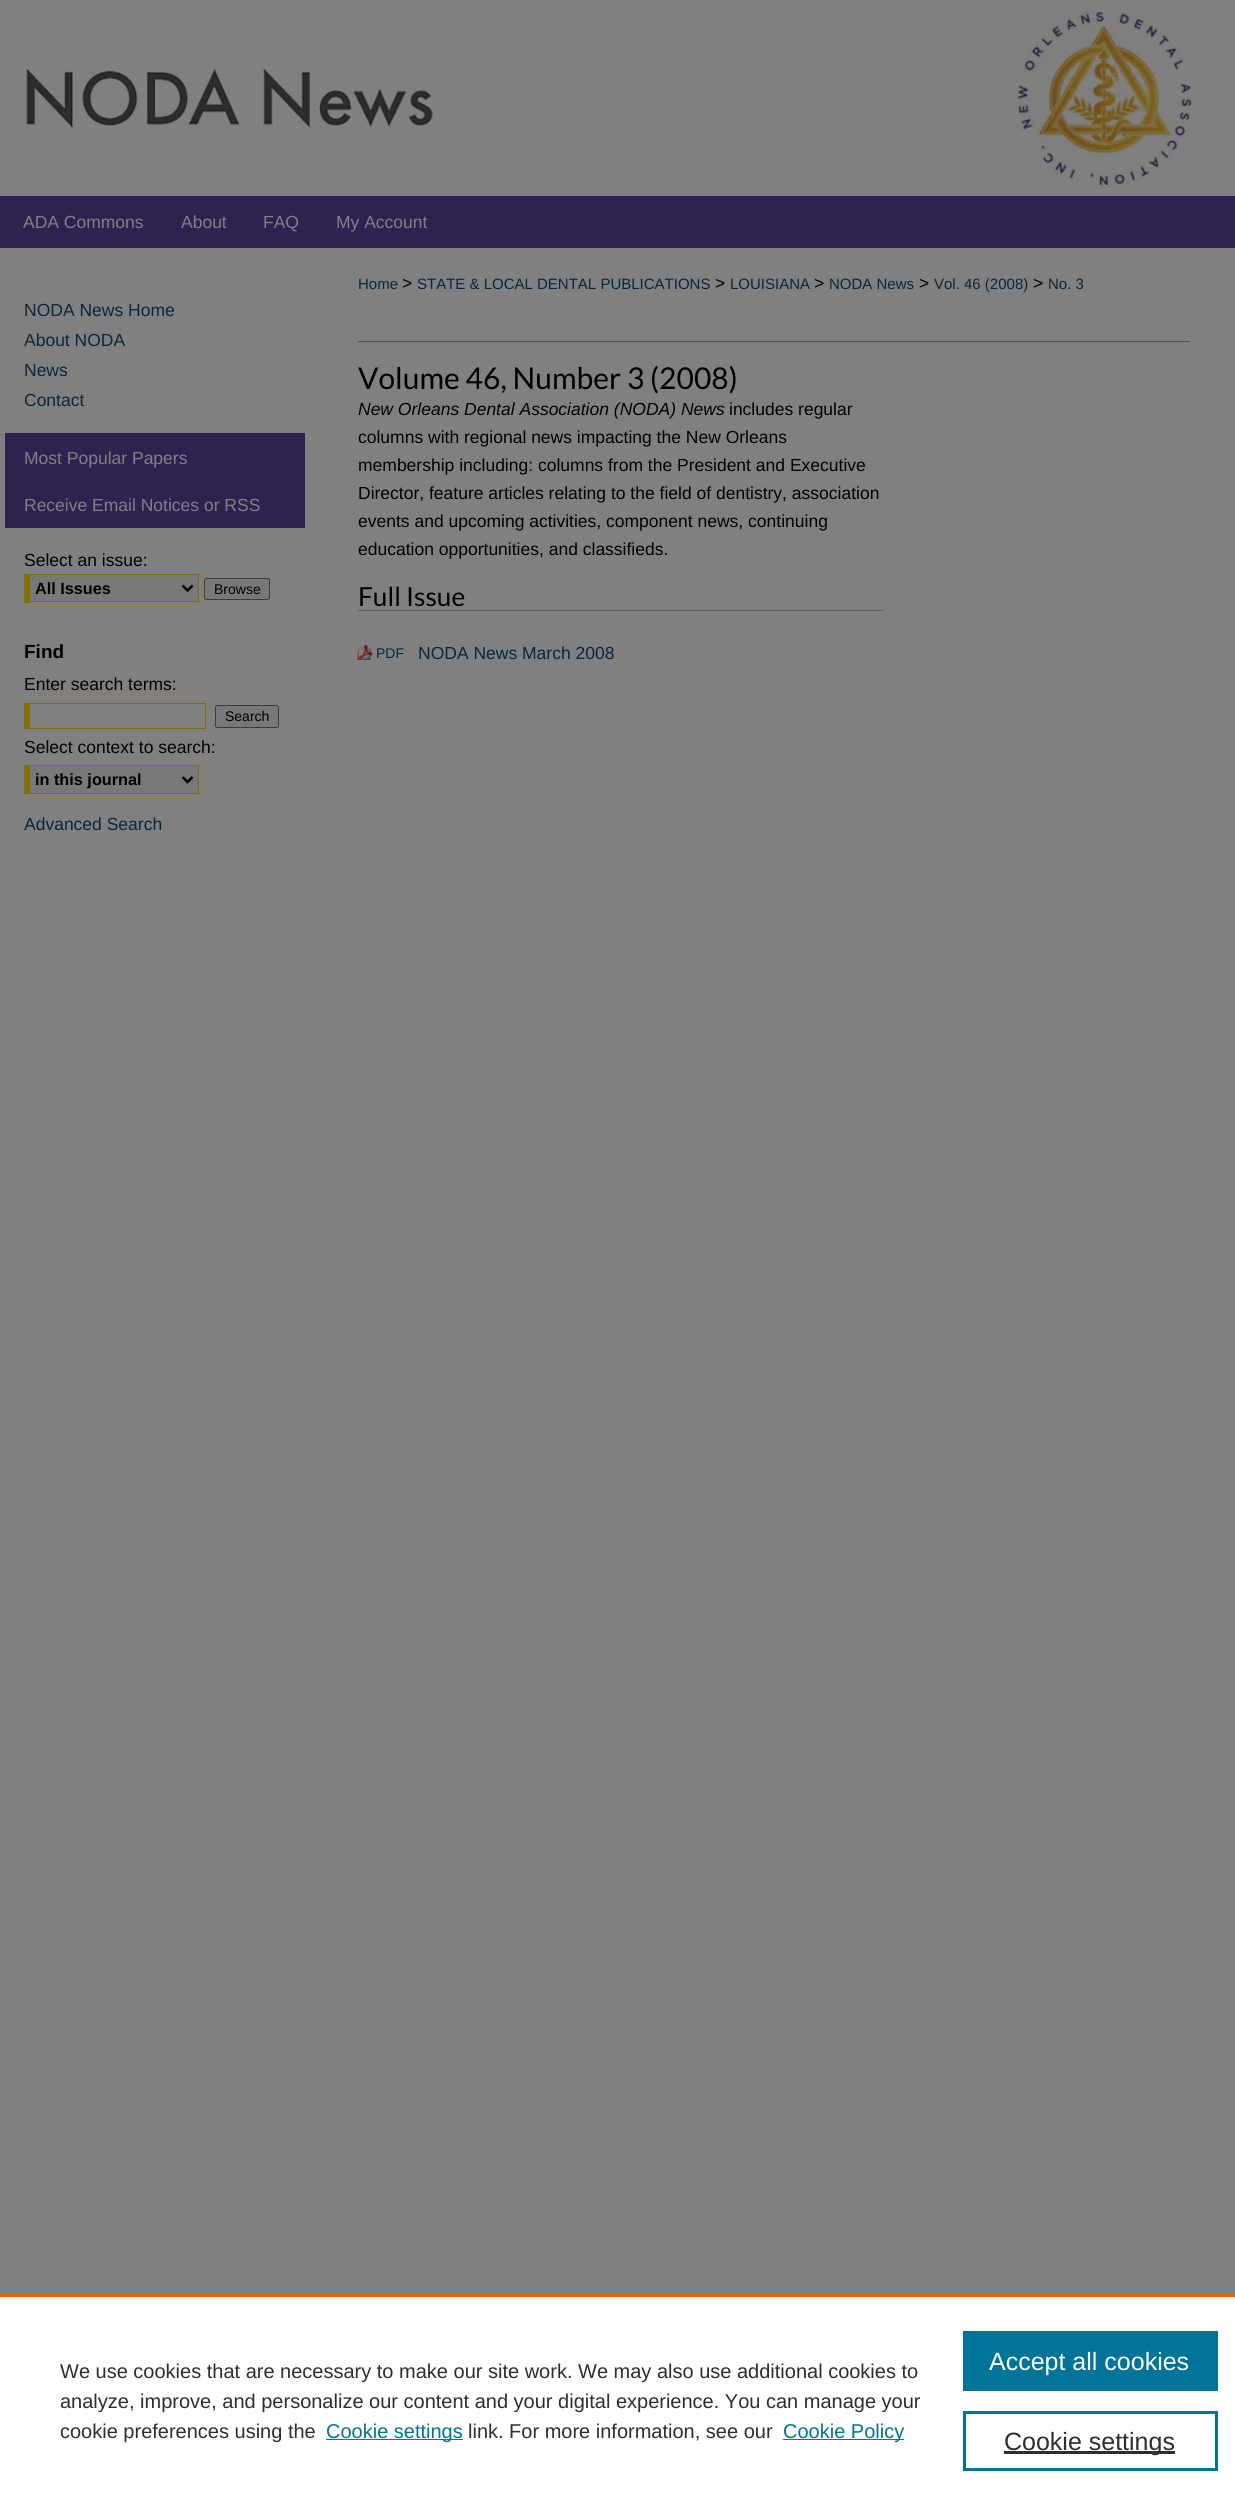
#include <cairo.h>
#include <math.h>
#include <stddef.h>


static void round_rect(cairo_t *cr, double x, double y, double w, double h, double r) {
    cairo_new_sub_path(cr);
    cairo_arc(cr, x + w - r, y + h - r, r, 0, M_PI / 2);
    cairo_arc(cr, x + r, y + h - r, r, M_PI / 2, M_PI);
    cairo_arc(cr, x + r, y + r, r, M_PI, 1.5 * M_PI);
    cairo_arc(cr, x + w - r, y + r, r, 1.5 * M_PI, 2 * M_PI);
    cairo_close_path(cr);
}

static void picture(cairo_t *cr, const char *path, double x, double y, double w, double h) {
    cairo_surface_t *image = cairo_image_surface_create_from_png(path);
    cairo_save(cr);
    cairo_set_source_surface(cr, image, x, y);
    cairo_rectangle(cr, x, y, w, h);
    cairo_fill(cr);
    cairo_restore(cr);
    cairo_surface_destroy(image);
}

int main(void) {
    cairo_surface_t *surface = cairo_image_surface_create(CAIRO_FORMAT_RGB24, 1235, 2506);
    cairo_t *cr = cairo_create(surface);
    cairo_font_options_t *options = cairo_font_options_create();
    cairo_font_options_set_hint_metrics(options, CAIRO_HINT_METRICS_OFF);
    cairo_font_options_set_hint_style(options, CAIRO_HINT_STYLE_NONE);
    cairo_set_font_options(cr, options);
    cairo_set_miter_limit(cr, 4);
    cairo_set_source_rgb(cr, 0.502, 0.502, 0.502);
    cairo_paint(cr);
    cairo_set_source_rgb(cr, 0.184, 0.133, 0.314);
    cairo_rectangle(cr, 0, 196, 1235, 52);
    cairo_fill(cr);
    picture(cr, "img1.png", 26, 68, 407, 60);
    picture(cr, "img2.png", 1017, 11, 175, 174);
    cairo_select_font_face(cr, "Liberation Sans", CAIRO_FONT_SLANT_NORMAL, CAIRO_FONT_WEIGHT_NORMAL);
    cairo_set_font_size(cr, 17.5);
    cairo_set_source_rgb(cr, 0.502, 0.502, 0.502);
    cairo_move_to(cr, 23, 228);
    cairo_show_text(cr, "ADA Commons");
    cairo_move_to(cr, 181, 228);
    cairo_show_text(cr, "About");
    cairo_move_to(cr, 263, 228);
    cairo_show_text(cr, "FAQ");
    cairo_move_to(cr, 336, 228);
    cairo_show_text(cr, "My Account");
    cairo_set_source_rgb(cr, 0.031, 0.153, 0.243);
    cairo_move_to(cr, 24, 316);
    cairo_show_text(cr, "NODA News Home");
    cairo_move_to(cr, 24, 346);
    cairo_show_text(cr, "About NODA");
    cairo_move_to(cr, 24, 376);
    cairo_show_text(cr, "News");
    cairo_move_to(cr, 24, 406);
    cairo_show_text(cr, "Contact");
    cairo_set_source_rgb(cr, 0.184, 0.133, 0.314);
    cairo_rectangle(cr, 5, 433, 300, 95);
    cairo_fill(cr);
    cairo_set_source_rgb(cr, 0.502, 0.502, 0.502);
    cairo_move_to(cr, 24, 464);
    cairo_show_text(cr, "Most Popular Papers");
    cairo_move_to(cr, 24, 511);
    cairo_show_text(cr, "Receive Email Notices or RSS");
    cairo_set_source_rgb(cr, 0, 0, 0);
    cairo_move_to(cr, 24, 566);
    cairo_show_text(cr, "Select an issue:");
    cairo_set_source_rgb(cr, 0.471, 0.471, 0.471);
    cairo_rectangle(cr, 30, 575, 168, 26);
    cairo_fill(cr);
    cairo_set_source_rgb(cr, 0.502, 0.435, 0.016);
    cairo_rectangle(cr, 24, 574, 175, 1);
    cairo_fill(cr);
    cairo_rectangle(cr, 198, 574, 1, 29);
    cairo_fill(cr);
    cairo_rectangle(cr, 24, 601, 175, 1);
    cairo_fill(cr);
    cairo_rectangle(cr, 24, 574, 6, 29);
    cairo_fill(cr);
    cairo_new_path(cr);
    cairo_move_to(cr, 182.5, 585.5);
    cairo_line_to(cr, 187.5, 590.5);
    cairo_line_to(cr, 192.5, 585.5);
    cairo_set_source_rgb(cr, 0, 0, 0);
    cairo_set_line_width(cr, 2.5);
    cairo_stroke(cr);
    cairo_select_font_face(cr, "Liberation Sans", CAIRO_FONT_SLANT_NORMAL, CAIRO_FONT_WEIGHT_BOLD);
    cairo_set_font_size(cr, 16.25);
    cairo_move_to(cr, 35, 594);
    cairo_show_text(cr, "All Issues");
    cairo_set_source_rgb(cr, 0.471, 0.471, 0.471);
    round_rect(cr, 204.5, 578.5, 65, 21, 2);
    cairo_fill_preserve(cr);
    cairo_set_source_rgb(cr, 0.231, 0.231, 0.231);
    cairo_set_line_width(cr, 1);
    cairo_stroke(cr);
    cairo_select_font_face(cr, "Liberation Sans", CAIRO_FONT_SLANT_NORMAL, CAIRO_FONT_WEIGHT_NORMAL);
    cairo_set_font_size(cr, 14);
    cairo_set_source_rgb(cr, 0, 0, 0);
    cairo_move_to(cr, 214, 594);
    cairo_show_text(cr, "Browse");
    cairo_select_font_face(cr, "Liberation Sans", CAIRO_FONT_SLANT_NORMAL, CAIRO_FONT_WEIGHT_BOLD);
    cairo_set_font_size(cr, 19);
    cairo_move_to(cr, 24, 658);
    cairo_show_text(cr, "Find");
    cairo_select_font_face(cr, "Liberation Sans", CAIRO_FONT_SLANT_NORMAL, CAIRO_FONT_WEIGHT_NORMAL);
    cairo_set_font_size(cr, 17.5);
    cairo_move_to(cr, 24, 690);
    cairo_show_text(cr, "Enter search terms:");
    cairo_set_source_rgb(cr, 0.502, 0.435, 0.016);
    cairo_rectangle(cr, 24, 703, 182, 1);
    cairo_fill(cr);
    cairo_rectangle(cr, 205, 703, 1, 26);
    cairo_fill(cr);
    cairo_rectangle(cr, 24, 728, 182, 1);
    cairo_fill(cr);
    cairo_rectangle(cr, 24, 703, 6, 26);
    cairo_fill(cr);
    cairo_set_source_rgb(cr, 0.471, 0.471, 0.471);
    round_rect(cr, 215.5, 705.5, 63, 22, 2);
    cairo_fill_preserve(cr);
    cairo_set_source_rgb(cr, 0.231, 0.231, 0.231);
    cairo_stroke(cr);
    cairo_set_font_size(cr, 14);
    cairo_set_source_rgb(cr, 0, 0, 0);
    cairo_move_to(cr, 225, 721);
    cairo_show_text(cr, "Search");
    cairo_set_font_size(cr, 17.5);
    cairo_move_to(cr, 24, 753);
    cairo_show_text(cr, "Select context to search:");
    cairo_set_source_rgb(cr, 0.471, 0.471, 0.471);
    cairo_rectangle(cr, 30, 766, 168, 27);
    cairo_fill(cr);
    cairo_set_source_rgb(cr, 0.502, 0.435, 0.016);
    cairo_rectangle(cr, 24, 765, 175, 1);
    cairo_fill(cr);
    cairo_rectangle(cr, 198, 765, 1, 29);
    cairo_fill(cr);
    cairo_rectangle(cr, 24, 793, 175, 1);
    cairo_fill(cr);
    cairo_rectangle(cr, 24, 765, 6, 29);
    cairo_fill(cr);
    cairo_new_path(cr);
    cairo_move_to(cr, 182.5, 777);
    cairo_line_to(cr, 187.5, 782);
    cairo_line_to(cr, 192.5, 777);
    cairo_set_source_rgb(cr, 0, 0, 0);
    cairo_set_line_width(cr, 2.5);
    cairo_stroke(cr);
    cairo_select_font_face(cr, "Liberation Sans", CAIRO_FONT_SLANT_NORMAL, CAIRO_FONT_WEIGHT_BOLD);
    cairo_set_font_size(cr, 16.25);
    cairo_move_to(cr, 35, 785);
    cairo_show_text(cr, "in this journal");
    cairo_select_font_face(cr, "Liberation Sans", CAIRO_FONT_SLANT_NORMAL, CAIRO_FONT_WEIGHT_NORMAL);
    cairo_set_font_size(cr, 17.5);
    cairo_set_source_rgb(cr, 0.031, 0.153, 0.243);
    cairo_move_to(cr, 24, 830);
    cairo_show_text(cr, "Advanced Search");
    cairo_set_font_size(cr, 15);
    cairo_move_to(cr, 358, 289);
    cairo_show_text(cr, "Home");
    cairo_set_font_size(cr, 17.5);
    cairo_set_source_rgb(cr, 0, 0, 0);
    cairo_move_to(cr, 402, 289);
    cairo_show_text(cr, ">");
    cairo_set_font_size(cr, 15);
    cairo_set_source_rgb(cr, 0.031, 0.153, 0.243);
    cairo_move_to(cr, 417, 289);
    cairo_show_text(cr, "STATE & LOCAL DENTAL PUBLICATIONS");
    cairo_set_font_size(cr, 17.5);
    cairo_set_source_rgb(cr, 0, 0, 0);
    cairo_move_to(cr, 715, 289);
    cairo_show_text(cr, ">");
    cairo_set_font_size(cr, 15);
    cairo_set_source_rgb(cr, 0.031, 0.153, 0.243);
    cairo_move_to(cr, 730, 289);
    cairo_show_text(cr, "LOUISIANA");
    cairo_set_font_size(cr, 17.5);
    cairo_set_source_rgb(cr, 0, 0, 0);
    cairo_move_to(cr, 814, 289);
    cairo_show_text(cr, ">");
    cairo_set_font_size(cr, 15);
    cairo_set_source_rgb(cr, 0.031, 0.153, 0.243);
    cairo_move_to(cr, 829, 289);
    cairo_show_text(cr, "NODA News");
    cairo_set_font_size(cr, 17.5);
    cairo_set_source_rgb(cr, 0, 0, 0);
    cairo_move_to(cr, 919, 289);
    cairo_show_text(cr, ">");
    cairo_set_font_size(cr, 15);
    cairo_set_source_rgb(cr, 0.031, 0.153, 0.243);
    cairo_move_to(cr, 934, 289);
    cairo_show_text(cr, "Vol. 46 (2008)");
    cairo_set_font_size(cr, 17.5);
    cairo_set_source_rgb(cr, 0, 0, 0);
    cairo_move_to(cr, 1033, 289);
    cairo_show_text(cr, ">");
    cairo_set_font_size(cr, 15);
    cairo_set_source_rgb(cr, 0.031, 0.153, 0.243);
    cairo_move_to(cr, 1048, 289);
    cairo_show_text(cr, "No. 3");
    cairo_set_source_rgb(cr, 0.333, 0.333, 0.333);
    cairo_rectangle(cr, 358, 341, 832, 1);
    cairo_fill(cr);
    cairo_select_font_face(cr, "Lato", CAIRO_FONT_SLANT_NORMAL, CAIRO_FONT_WEIGHT_NORMAL);
    cairo_set_font_size(cr, 30);
    cairo_set_source_rgb(cr, 0, 0, 0);
    cairo_move_to(cr, 358, 389);
    cairo_show_text(cr, "Volume 46, Number 3 (2008)");
    cairo_select_font_face(cr, "Liberation Sans", CAIRO_FONT_SLANT_ITALIC, CAIRO_FONT_WEIGHT_NORMAL);
    cairo_set_font_size(cr, 17.5);
    cairo_move_to(cr, 358, 415);
    cairo_show_text(cr, "New Orleans Dental Association (NODA) News");
    cairo_select_font_face(cr, "Liberation Sans", CAIRO_FONT_SLANT_NORMAL, CAIRO_FONT_WEIGHT_NORMAL);
    cairo_move_to(cr, 729, 415);
    cairo_show_text(cr, "includes regular");
    cairo_move_to(cr, 358, 443);
    cairo_show_text(cr, "columns with regional news impacting the New Orleans");
    cairo_move_to(cr, 358, 471);
    cairo_show_text(cr, "membership including: columns from the President and Executive");
    cairo_move_to(cr, 358, 499);
    cairo_show_text(cr, "Director, feature articles relating to the field of dentistry, association");
    cairo_move_to(cr, 358, 527);
    cairo_show_text(cr, "events and upcoming activities, component news, continuing");
    cairo_move_to(cr, 358, 555);
    cairo_show_text(cr, "education opportunities, and classifieds.");
    cairo_set_source_rgb(cr, 0.376, 0.376, 0.376);
    cairo_rectangle(cr, 358, 610, 525, 1);
    cairo_fill(cr);
    cairo_select_font_face(cr, "Lato", CAIRO_FONT_SLANT_NORMAL, CAIRO_FONT_WEIGHT_NORMAL);
    cairo_set_font_size(cr, 26.25);
    cairo_set_source_rgb(cr, 0, 0, 0);
    cairo_move_to(cr, 358, 606);
    cairo_show_text(cr, "Full Issue");
    picture(cr, "img3.png", 357, 645, 16, 15);
    cairo_select_font_face(cr, "Liberation Sans", CAIRO_FONT_SLANT_NORMAL, CAIRO_FONT_WEIGHT_NORMAL);
    cairo_set_font_size(cr, 14);
    cairo_set_source_rgb(cr, 0.031, 0.153, 0.243);
    cairo_move_to(cr, 376, 658);
    cairo_show_text(cr, "PDF");
    cairo_set_font_size(cr, 17.5);
    cairo_move_to(cr, 418, 659);
    cairo_show_text(cr, "NODA News March 2008");
    cairo_set_source_rgb(cr, 1, 1, 1);
    cairo_rectangle(cr, 0, 2297, 1235, 209);
    cairo_fill(cr);
    cairo_set_source_rgb(cr, 0.922, 0.396, 0);
    cairo_rectangle(cr, 0, 2294, 1235, 3);
    cairo_fill(cr);
    cairo_set_font_size(cr, 20);
    cairo_set_source_rgb(cr, 0.18, 0.18, 0.18);
    cairo_move_to(cr, 60, 2378);
    cairo_show_text(cr, "We use cookies that are necessary to make our site work. We may also use additional cookies to");
    cairo_move_to(cr, 60, 2408);
    cairo_show_text(cr, "analyze, improve, and personalize our content and your digital experience. You can manage your");
    cairo_move_to(cr, 60, 2438);
    cairo_show_text(cr, "cookie preferences using the");
    cairo_set_source_rgb(cr, 0, 0.451, 0.596);
    cairo_rectangle(cr, 326, 2439, 137, 1);
    cairo_fill(cr);
    cairo_move_to(cr, 326, 2438);
    cairo_show_text(cr, "Cookie settings");
    cairo_set_source_rgb(cr, 0.18, 0.18, 0.18);
    cairo_move_to(cr, 468, 2438);
    cairo_show_text(cr, "link. For more information, see our");
    cairo_set_source_rgb(cr, 0, 0.451, 0.596);
    cairo_rectangle(cr, 783, 2439, 121, 1);
    cairo_fill(cr);
    cairo_move_to(cr, 783, 2438);
    cairo_show_text(cr, "Cookie Policy");
    cairo_rectangle(cr, 963, 2331, 255, 60);
    cairo_fill(cr);
    cairo_set_font_size(cr, 25);
    cairo_set_source_rgb(cr, 1, 1, 1);
    cairo_move_to(cr, 989, 2370);
    cairo_show_text(cr, "Accept all cookies");
    cairo_rectangle(cr, 964.5, 2412.5, 252, 57);
    cairo_set_source_rgb(cr, 0, 0.451, 0.596);
    cairo_set_line_width(cr, 3);
    cairo_stroke(cr);
    cairo_set_source_rgb(cr, 0.18, 0.18, 0.18);
    cairo_rectangle(cr, 1004, 2451, 171, 3);
    cairo_fill(cr);
    cairo_move_to(cr, 1004, 2450);
    cairo_show_text(cr, "Cookie settings");
    cairo_surface_write_to_png(surface, "page.png");
    cairo_font_options_destroy(options);
    cairo_destroy(cr);
    cairo_surface_destroy(surface);
    return 0;
}
